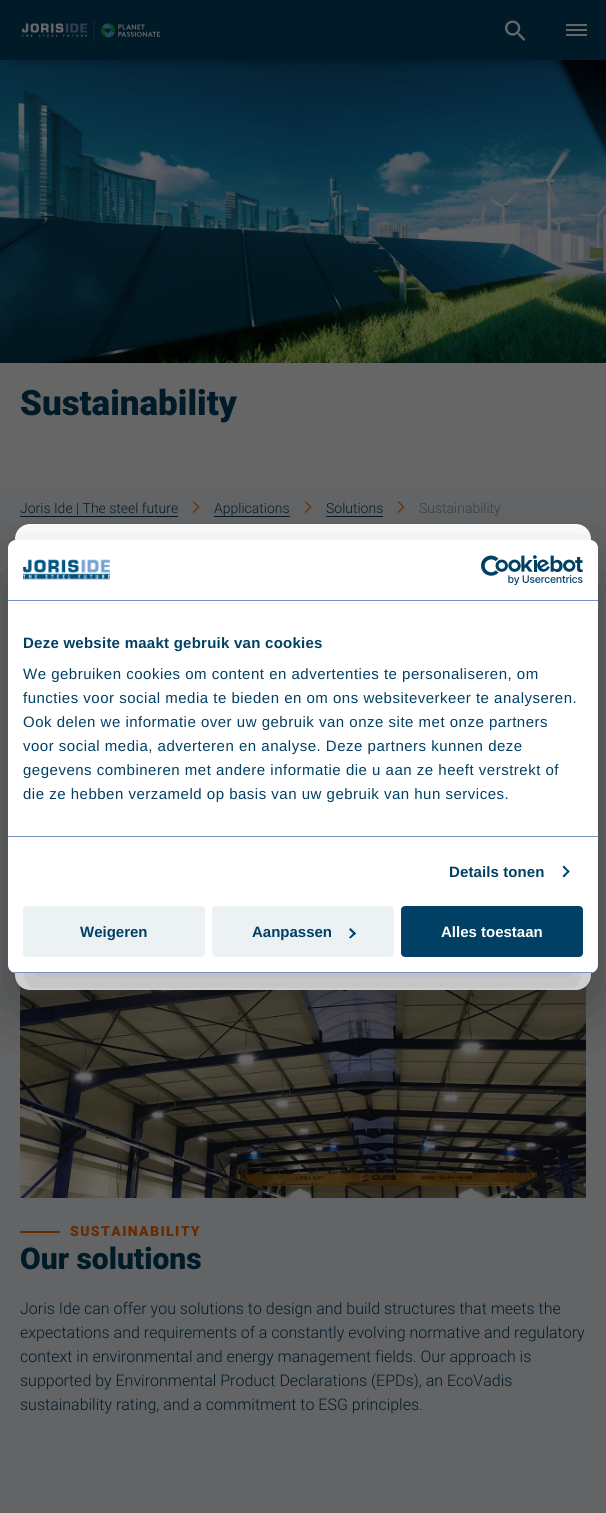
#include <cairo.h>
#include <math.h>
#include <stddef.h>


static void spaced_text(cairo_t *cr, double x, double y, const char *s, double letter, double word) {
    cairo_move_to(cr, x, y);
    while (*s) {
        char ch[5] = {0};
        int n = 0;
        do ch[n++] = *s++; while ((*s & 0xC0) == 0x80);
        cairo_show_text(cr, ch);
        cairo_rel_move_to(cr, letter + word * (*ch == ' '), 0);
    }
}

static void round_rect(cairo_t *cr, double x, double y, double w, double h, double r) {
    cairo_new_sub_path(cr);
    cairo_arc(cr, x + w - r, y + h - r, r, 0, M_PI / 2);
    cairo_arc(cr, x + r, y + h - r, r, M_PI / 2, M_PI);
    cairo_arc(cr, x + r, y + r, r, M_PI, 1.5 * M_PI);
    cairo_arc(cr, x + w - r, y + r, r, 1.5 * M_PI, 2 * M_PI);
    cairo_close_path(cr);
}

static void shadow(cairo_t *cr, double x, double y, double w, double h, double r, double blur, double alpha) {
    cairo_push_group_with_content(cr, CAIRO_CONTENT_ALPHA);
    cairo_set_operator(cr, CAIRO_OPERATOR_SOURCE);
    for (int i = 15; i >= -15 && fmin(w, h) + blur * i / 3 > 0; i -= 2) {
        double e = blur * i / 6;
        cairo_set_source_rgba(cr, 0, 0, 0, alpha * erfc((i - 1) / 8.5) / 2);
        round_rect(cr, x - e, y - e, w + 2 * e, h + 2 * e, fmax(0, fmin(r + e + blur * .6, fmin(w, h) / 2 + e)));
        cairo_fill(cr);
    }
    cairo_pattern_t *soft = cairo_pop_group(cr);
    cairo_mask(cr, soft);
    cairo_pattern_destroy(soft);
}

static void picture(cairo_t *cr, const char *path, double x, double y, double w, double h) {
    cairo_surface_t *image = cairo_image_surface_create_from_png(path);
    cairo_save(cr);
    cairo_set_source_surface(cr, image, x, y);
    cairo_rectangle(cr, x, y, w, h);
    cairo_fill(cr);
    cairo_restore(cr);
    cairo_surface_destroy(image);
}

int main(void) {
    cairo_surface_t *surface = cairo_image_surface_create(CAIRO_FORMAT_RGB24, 606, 1513);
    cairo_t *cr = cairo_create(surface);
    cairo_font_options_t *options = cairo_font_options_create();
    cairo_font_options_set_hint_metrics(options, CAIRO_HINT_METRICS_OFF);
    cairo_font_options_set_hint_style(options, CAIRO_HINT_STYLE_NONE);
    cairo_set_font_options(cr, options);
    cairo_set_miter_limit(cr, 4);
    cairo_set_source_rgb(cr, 0.388, 0.392, 0.396);
    cairo_paint(cr);
    picture(cr, "img3.png", 0, 60, 606, 303);
    cairo_set_source_rgb(cr, 0, 0, 0);
    shadow(cr, 15, 25, 576, 30, 0, 7.5, 0.75);
    cairo_set_source_rgb(cr, 0, 0.102, 0.157);
    cairo_rectangle(cr, 0, 0, 606, 60);
    cairo_fill(cr);
    picture(cr, "img1.png", 22, 19, 138, 23);
    cairo_set_source_rgb(cr, 0.4, 0.4, 0.4);
    cairo_rectangle(cr, 566, 24, 21, 2);
    cairo_fill(cr);
    cairo_rectangle(cr, 566, 29, 21, 2);
    cairo_fill(cr);
    cairo_rectangle(cr, 566, 34, 21, 2);
    cairo_fill(cr);
    picture(cr, "img2.png", 505, 20, 20, 21);
    cairo_rectangle(cr, 0, 363, 606, 126);
    cairo_fill(cr);
    cairo_select_font_face(cr, "Roboto Black", CAIRO_FONT_SLANT_NORMAL, CAIRO_FONT_WEIGHT_NORMAL);
    cairo_set_font_size(cr, 35);
    cairo_set_source_rgb(cr, 0, 0.102, 0.157);
    cairo_move_to(cr, 20, 415);
    cairo_show_text(cr, "Sustainability");
    cairo_select_font_face(cr, "Roboto Light", CAIRO_FONT_SLANT_NORMAL, CAIRO_FONT_WEIGHT_NORMAL);
    cairo_set_font_size(cr, 14);
    cairo_move_to(cr, 20, 513);
    cairo_show_text(cr, "Joris Ide | The steel future");
    cairo_rectangle(cr, 20, 516, 158, 1);
    cairo_fill(cr);
    picture(cr, "img4.png", 192, 501, 8, 12);
    cairo_move_to(cr, 214, 513);
    cairo_show_text(cr, "Applications");
    cairo_rectangle(cr, 214, 516, 76, 1);
    cairo_fill(cr);
    picture(cr, "img4.png", 304, 501, 8, 12);
    cairo_move_to(cr, 326, 513);
    cairo_show_text(cr, "Solutions");
    cairo_rectangle(cr, 326, 516, 57, 1);
    cairo_fill(cr);
    picture(cr, "img4.png", 397, 501, 8, 12);
    cairo_set_source_rgb(cr, 0.196, 0.247, 0.278);
    cairo_move_to(cr, 419, 513);
    cairo_show_text(cr, "Sustainability");
    picture(cr, "img5.png", 20, 986, 566, 212);
    cairo_set_source_rgb(cr, 0.4, 0.169, 0);
    cairo_rectangle(cr, 20, 1231, 40, 2);
    cairo_fill(cr);
    cairo_select_font_face(cr, "Roboto Black", CAIRO_FONT_SLANT_NORMAL, CAIRO_FONT_WEIGHT_NORMAL);
    spaced_text(cr, 70, 1236, "SUSTAINABILITY", 1.4, 0);
    cairo_set_font_size(cr, 30);
    cairo_set_source_rgb(cr, 0, 0.102, 0.157);
    cairo_move_to(cr, 20, 1269);
    cairo_show_text(cr, "Our solutions");
    cairo_select_font_face(cr, "Roboto Light", CAIRO_FONT_SLANT_NORMAL, CAIRO_FONT_WEIGHT_NORMAL);
    cairo_set_font_size(cr, 16);
    cairo_move_to(cr, 20, 1314);
    cairo_show_text(cr, "Joris Ide can offer you solutions to design and build structures that meets the");
    cairo_move_to(cr, 20, 1338);
    cairo_show_text(cr, "expectations and requirements of a constantly evolving normative and regulatory");
    cairo_move_to(cr, 20, 1362);
    cairo_show_text(cr, "context in environmental and energy management fields. Our approach is");
    cairo_move_to(cr, 20, 1386);
    cairo_show_text(cr, "supported by Environmental Product Declarations (EPDs), an EcoVadis");
    cairo_move_to(cr, 20, 1410);
    cairo_show_text(cr, "sustainability rating, and a commitment to ESG principles.");
    cairo_set_source_rgb(cr, 1, 1, 1);
    round_rect(cr, 15, 524, 576, 466, 15);
    cairo_fill(cr);
    cairo_set_source_rgb(cr, 0, 0, 0);
    shadow(cr, 8, 572, 590, 433, 8, 34, 0.3);
    cairo_set_source_rgb(cr, 1, 1, 1);
    round_rect(cr, 8, 540, 590, 433, 8);
    cairo_fill(cr);
    cairo_set_source_rgb(cr, 0.455, 0.584, 0.757);
    cairo_rectangle(cr, 8, 600, 590, 1);
    cairo_fill(cr);
    picture(cr, "img6.png", 23, 559, 87, 21);
    picture(cr, "img7.png", 481, 555, 102, 30);
    cairo_rectangle(cr, 8, 836, 590, 1);
    cairo_fill(cr);
    cairo_select_font_face(cr, "Liberation Sans", CAIRO_FONT_SLANT_NORMAL, CAIRO_FONT_WEIGHT_BOLD);
    cairo_set_font_size(cr, 15);
    cairo_set_source_rgb(cr, 0, 0.251, 0.396);
    spaced_text(cr, 23, 648, "Deze website maakt gebruik van cookies", 0.25, 0);
    cairo_select_font_face(cr, "Liberation Sans", CAIRO_FONT_SLANT_NORMAL, CAIRO_FONT_WEIGHT_NORMAL);
    spaced_text(cr, 23, 679, "We gebruiken cookies om content en advertenties te personaliseren, om", 0.5, 0);
    spaced_text(cr, 23, 703, "functies voor social media te bieden en om ons websiteverkeer te analyseren.", 0.5, 0);
    spaced_text(cr, 23, 727, "Ook delen we informatie over uw gebruik van onze site met onze partners", 0.5, 0);
    spaced_text(cr, 23, 751, "voor social media, adverteren en analyse. Deze partners kunnen deze", 0.5, 0);
    spaced_text(cr, 23, 775, "gegevens combineren met andere informatie die u aan ze heeft verstrekt of", 0.5, 0);
    spaced_text(cr, 23, 799, "die ze hebben verzameld op basis van uw gebruik van hun services.", 0.5, 0);
    cairo_select_font_face(cr, "Liberation Sans", CAIRO_FONT_SLANT_NORMAL, CAIRO_FONT_WEIGHT_BOLD);
    spaced_text(cr, 449, 877, "Details tonen", 0.1, 0);
    cairo_new_path(cr);
    cairo_move_to(cr, 564, 865.5);
    cairo_line_to(cr, 569.5, 871.5);
    cairo_line_to(cr, 568.5, 873);
    cairo_line_to(cr, 562.5, 867);
    cairo_close_path(cr);
    cairo_fill(cr);
    cairo_new_path(cr);
    cairo_move_to(cr, 568.5, 870);
    cairo_line_to(cr, 569.5, 871.5);
    cairo_line_to(cr, 564, 877.5);
    cairo_line_to(cr, 562.5, 876);
    cairo_close_path(cr);
    cairo_fill(cr);
    cairo_save(cr);
    round_rect(cr, 8, 540, 590, 433, 8);
    cairo_clip(cr);
    cairo_set_source_rgb(cr, 0.455, 0.584, 0.757);
    cairo_rectangle(cr, 8, 972, 590, 1);
    cairo_fill(cr);
    cairo_restore(cr);
    cairo_set_source_rgb(cr, 0.925, 0.945, 0.957);
    round_rect(cr, 24, 907, 180, 49, 3);
    cairo_fill_preserve(cr);
    cairo_stroke(cr);
    cairo_set_source_rgb(cr, 0, 0.251, 0.396);
    cairo_move_to(cr, 80, 937);
    cairo_show_text(cr, "Weigeren");
    cairo_set_source_rgb(cr, 0.925, 0.945, 0.957);
    round_rect(cr, 213, 907, 180, 49, 3);
    cairo_fill_preserve(cr);
    cairo_stroke(cr);
    cairo_set_source_rgb(cr, 0, 0.251, 0.396);
    cairo_move_to(cr, 252, 937);
    cairo_show_text(cr, "Aanpassen");
    cairo_new_path(cr);
    cairo_move_to(cr, 350.5, 928);
    cairo_line_to(cr, 356, 933.5);
    cairo_line_to(cr, 354.5, 935);
    cairo_line_to(cr, 349, 929.5);
    cairo_close_path(cr);
    cairo_fill(cr);
    cairo_new_path(cr);
    cairo_move_to(cr, 354.5, 932);
    cairo_line_to(cr, 356, 933.5);
    cairo_line_to(cr, 350.5, 938.5);
    cairo_line_to(cr, 349, 937.5);
    cairo_close_path(cr);
    cairo_fill(cr);
    round_rect(cr, 402, 907, 180, 49, 3);
    cairo_fill_preserve(cr);
    cairo_stroke(cr);
    cairo_set_source_rgb(cr, 1, 1, 1);
    cairo_move_to(cr, 441, 937);
    cairo_show_text(cr, "Alles toestaan");
    cairo_surface_write_to_png(surface, "page.png");
    cairo_font_options_destroy(options);
    cairo_destroy(cr);
    cairo_surface_destroy(surface);
    return 0;
}
